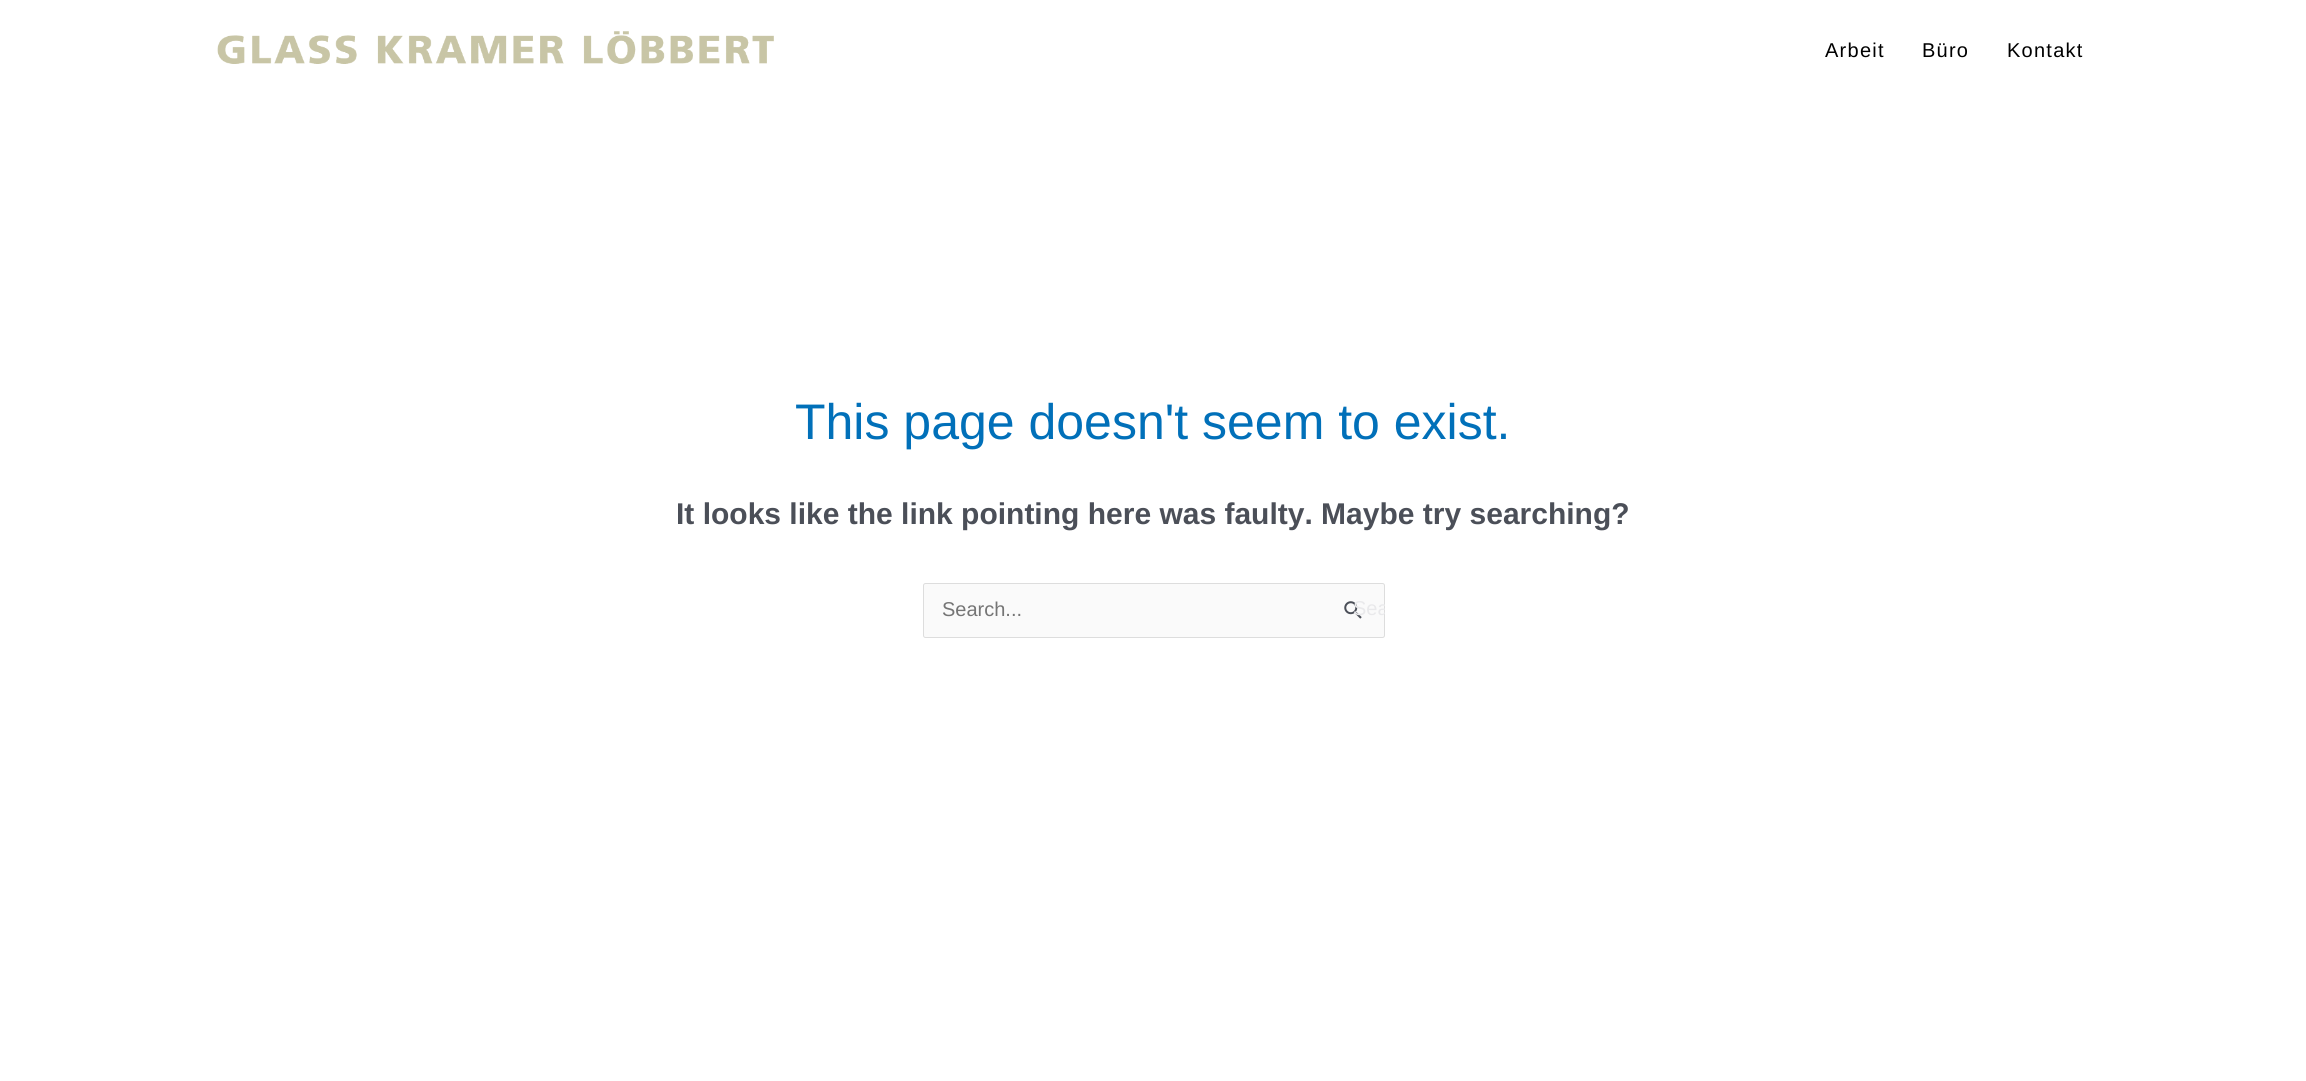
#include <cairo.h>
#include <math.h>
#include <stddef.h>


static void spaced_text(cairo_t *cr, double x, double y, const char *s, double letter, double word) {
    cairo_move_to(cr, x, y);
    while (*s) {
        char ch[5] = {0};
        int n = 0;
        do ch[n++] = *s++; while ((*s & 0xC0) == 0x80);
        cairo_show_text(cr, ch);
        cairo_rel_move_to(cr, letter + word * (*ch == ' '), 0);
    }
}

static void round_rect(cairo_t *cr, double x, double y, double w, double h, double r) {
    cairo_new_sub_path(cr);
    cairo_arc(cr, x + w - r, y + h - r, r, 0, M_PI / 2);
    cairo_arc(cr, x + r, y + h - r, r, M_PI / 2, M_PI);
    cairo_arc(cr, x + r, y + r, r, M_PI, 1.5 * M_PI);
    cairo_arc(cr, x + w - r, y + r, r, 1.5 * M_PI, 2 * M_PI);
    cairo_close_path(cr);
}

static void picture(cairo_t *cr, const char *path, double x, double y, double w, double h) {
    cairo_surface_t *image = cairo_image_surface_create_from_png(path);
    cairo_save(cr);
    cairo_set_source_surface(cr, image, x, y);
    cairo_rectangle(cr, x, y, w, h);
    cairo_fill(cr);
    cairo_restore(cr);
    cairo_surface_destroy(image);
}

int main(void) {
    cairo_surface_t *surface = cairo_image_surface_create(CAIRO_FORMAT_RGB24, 2306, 1081);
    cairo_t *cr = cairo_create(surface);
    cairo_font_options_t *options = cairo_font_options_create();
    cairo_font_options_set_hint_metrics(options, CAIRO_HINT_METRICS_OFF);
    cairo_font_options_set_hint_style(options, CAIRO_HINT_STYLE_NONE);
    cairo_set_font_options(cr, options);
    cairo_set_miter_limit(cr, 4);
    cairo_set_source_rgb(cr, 1, 1, 1);
    cairo_paint(cr);
    picture(cr, "img1.png", 217, 31, 557, 33);
    cairo_select_font_face(cr, "Liberation Sans", CAIRO_FONT_SLANT_NORMAL, CAIRO_FONT_WEIGHT_NORMAL);
    cairo_set_font_size(cr, 20);
    cairo_set_source_rgb(cr, 0, 0, 0);
    spaced_text(cr, 1825, 57, "Arbeit", 1.25, 0);
    spaced_text(cr, 1922, 57, "Büro", 1.25, 0);
    spaced_text(cr, 2007, 57, "Kontakt", 1.25, 0);
    cairo_set_font_size(cr, 50);
    cairo_set_source_rgb(cr, 0.004, 0.439, 0.725);
    cairo_move_to(cr, 795, 439);
    cairo_show_text(cr, "This page doesn't seem to exist.");
    cairo_select_font_face(cr, "Liberation Sans", CAIRO_FONT_SLANT_NORMAL, CAIRO_FONT_WEIGHT_BOLD);
    cairo_set_font_size(cr, 30);
    cairo_set_source_rgb(cr, 0.294, 0.31, 0.345);
    cairo_move_to(cr, 676, 524);
    cairo_show_text(cr, "It looks like the link pointing here was faulty. Maybe try searching?");
    cairo_set_source_rgb(cr, 0.98, 0.98, 0.98);
    round_rect(cr, 923.5, 583.5, 461, 54, 2);
    cairo_fill_preserve(cr);
    cairo_set_source_rgb(cr, 0.867, 0.867, 0.867);
    cairo_set_line_width(cr, 1);
    cairo_stroke(cr);
    cairo_select_font_face(cr, "Liberation Sans", CAIRO_FONT_SLANT_NORMAL, CAIRO_FONT_WEIGHT_NORMAL);
    cairo_set_font_size(cr, 20);
    cairo_set_source_rgb(cr, 0.459, 0.459, 0.459);
    cairo_move_to(cr, 942, 616);
    cairo_show_text(cr, "Search...");
    picture(cr, "img2.png", 1344, 601, 18, 18);
    cairo_save(cr);
    round_rect(cr, 1329, 583, 56, 52, 2.5);
    cairo_clip(cr);
    cairo_set_source_rgb(cr, 0.914, 0.914, 0.918);
    cairo_move_to(cr, 1353, 615);
    cairo_show_text(cr, "Sea");
    cairo_restore(cr);
    cairo_surface_write_to_png(surface, "page.png");
    cairo_font_options_destroy(options);
    cairo_destroy(cr);
    cairo_surface_destroy(surface);
    return 0;
}
